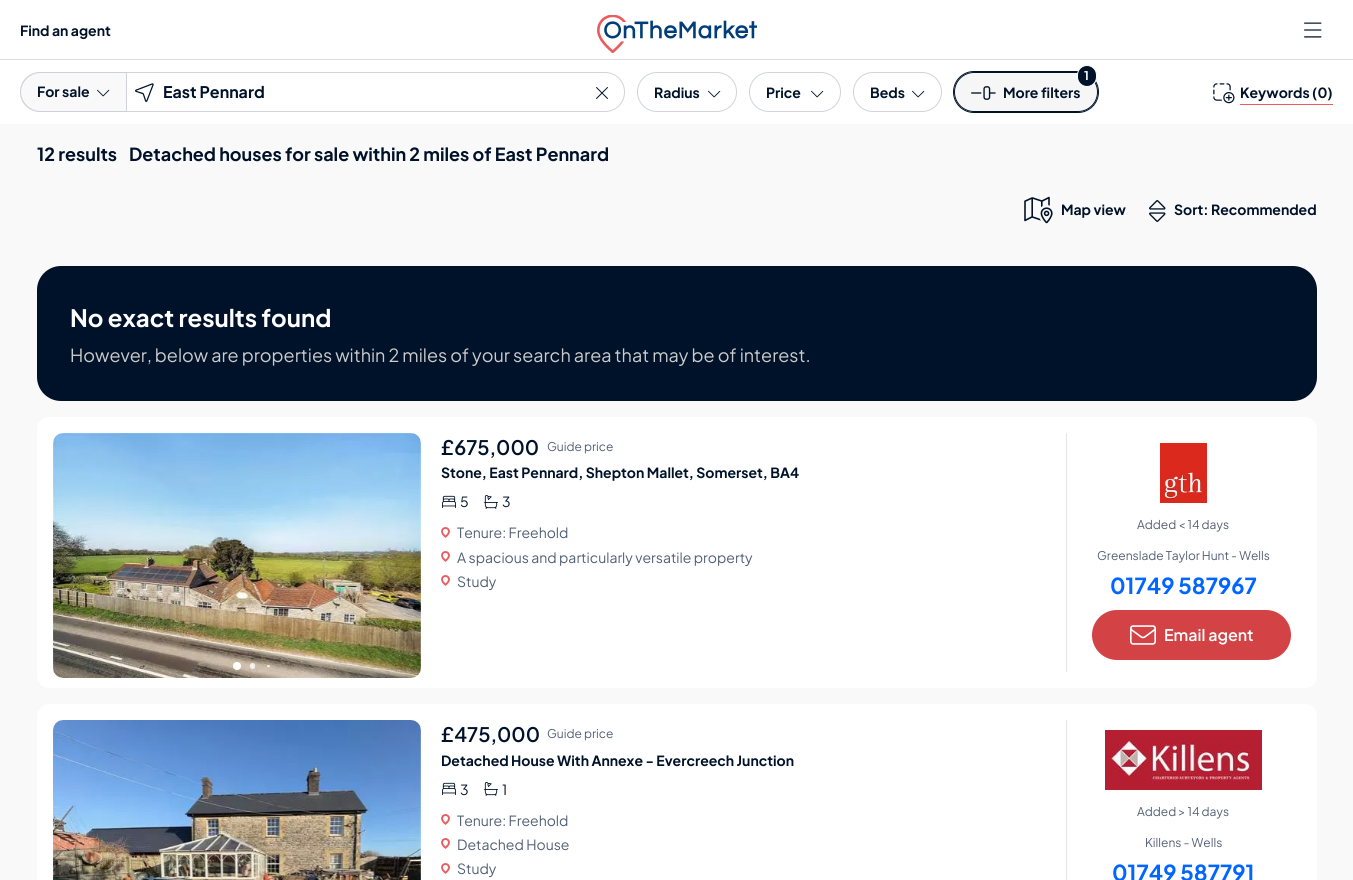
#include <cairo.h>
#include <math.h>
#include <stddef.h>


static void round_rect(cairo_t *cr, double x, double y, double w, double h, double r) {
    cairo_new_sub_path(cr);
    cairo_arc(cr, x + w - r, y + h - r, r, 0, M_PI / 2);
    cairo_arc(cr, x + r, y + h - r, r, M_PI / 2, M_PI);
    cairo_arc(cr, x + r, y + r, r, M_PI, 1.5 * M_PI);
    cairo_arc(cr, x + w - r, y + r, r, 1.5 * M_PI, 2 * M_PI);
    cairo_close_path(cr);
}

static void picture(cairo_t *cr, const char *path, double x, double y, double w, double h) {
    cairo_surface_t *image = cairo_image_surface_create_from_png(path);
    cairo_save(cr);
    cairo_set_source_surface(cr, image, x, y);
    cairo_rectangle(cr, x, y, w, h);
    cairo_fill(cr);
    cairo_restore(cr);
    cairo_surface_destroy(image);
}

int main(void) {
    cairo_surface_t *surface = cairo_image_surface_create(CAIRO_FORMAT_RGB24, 1353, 880);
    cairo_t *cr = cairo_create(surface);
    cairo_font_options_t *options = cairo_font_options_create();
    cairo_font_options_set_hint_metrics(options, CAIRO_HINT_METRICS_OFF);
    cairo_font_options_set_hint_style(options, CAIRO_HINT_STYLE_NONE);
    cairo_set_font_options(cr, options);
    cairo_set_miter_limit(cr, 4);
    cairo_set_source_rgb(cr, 1, 1, 1);
    cairo_paint(cr);
    cairo_set_source_rgb(cr, 0.851, 0.863, 0.882);
    cairo_rectangle(cr, 0, 59, 1353, 1);
    cairo_fill(cr);
    cairo_select_font_face(cr, "Plus Jakarta Sans", CAIRO_FONT_SLANT_NORMAL, CAIRO_FONT_WEIGHT_BOLD);
    cairo_set_font_size(cr, 14);
    cairo_set_source_rgb(cr, 0, 0.071, 0.161);
    cairo_move_to(cr, 20, 36);
    cairo_show_text(cr, "Find an agent");
    picture(cr, "img1.png", 597, 15, 160, 38);
    picture(cr, "img2.png", 1304, 22, 18, 16);
    cairo_set_source_rgb(cr, 0.98, 0.976, 0.976);
    cairo_new_path(cr);
    cairo_move_to(cr, 40, 72);
    cairo_line_to(cr, 126, 72);
    cairo_line_to(cr, 126, 112);
    cairo_line_to(cr, 40, 112);
    cairo_curve_to(cr, 29, 112, 20, 103, 20, 92);
    cairo_curve_to(cr, 20, 81, 29, 72, 40, 72);
    cairo_close_path(cr);
    cairo_fill(cr);
    cairo_set_source_rgba(cr, 0.631, 0.659, 0.702, 0.5);
    cairo_set_fill_rule(cr, CAIRO_FILL_RULE_EVEN_ODD);
    cairo_new_path(cr);
    cairo_move_to(cr, 40, 72);
    cairo_line_to(cr, 126, 72);
    cairo_line_to(cr, 126, 112);
    cairo_line_to(cr, 40, 112);
    cairo_curve_to(cr, 29, 112, 20, 103, 20, 92);
    cairo_curve_to(cr, 20, 81, 29, 72, 40, 72);
    cairo_close_path(cr);
    cairo_move_to(cr, 40, 73);
    cairo_line_to(cr, 126, 73);
    cairo_line_to(cr, 126, 111);
    cairo_line_to(cr, 40, 111);
    cairo_curve_to(cr, 30, 111, 21, 102, 21, 92);
    cairo_curve_to(cr, 21, 82, 30, 73, 40, 73);
    cairo_close_path(cr);
    cairo_fill(cr);
    cairo_set_source_rgb(cr, 0, 0.071, 0.161);
    cairo_move_to(cr, 37, 97);
    cairo_show_text(cr, "For sale");
    picture(cr, "img3.png", 97, 89, 13, 8);
    cairo_new_path(cr);
    cairo_move_to(cr, 126.5, 72.5);
    cairo_line_to(cr, 605, 72.5);
    cairo_curve_to(cr, 616, 72.5, 624.5, 81, 624.5, 92);
    cairo_curve_to(cr, 624.5, 103, 616, 111.5, 605, 111.5);
    cairo_line_to(cr, 126.5, 111.5);
    cairo_close_path(cr);
    cairo_set_source_rgb(cr, 0.816, 0.831, 0.851);
    cairo_set_line_width(cr, 1);
    cairo_stroke(cr);
    picture(cr, "img4.png", 135, 83, 19, 19);
    cairo_set_font_size(cr, 16);
    cairo_set_source_rgb(cr, 0, 0.071, 0.161);
    cairo_move_to(cr, 163, 98);
    cairo_show_text(cr, "East Pennard");
    picture(cr, "img5.png", 596, 87, 12, 12);
    round_rect(cr, 637.5, 72.5, 99, 39, 19.5);
    cairo_set_source_rgb(cr, 0.816, 0.831, 0.851);
    cairo_stroke(cr);
    cairo_set_font_size(cr, 14);
    cairo_set_source_rgb(cr, 0, 0.071, 0.161);
    cairo_move_to(cr, 654, 98);
    cairo_show_text(cr, "Radius");
    picture(cr, "img6.png", 708, 90, 13, 8);
    round_rect(cr, 749.5, 72.5, 91, 39, 19.5);
    cairo_set_source_rgb(cr, 0.816, 0.831, 0.851);
    cairo_stroke(cr);
    cairo_set_source_rgb(cr, 0, 0.071, 0.161);
    cairo_move_to(cr, 766, 98);
    cairo_show_text(cr, "Price");
    picture(cr, "img6.png", 811, 90, 13, 8);
    round_rect(cr, 853.5, 72.5, 88, 39, 19.5);
    cairo_set_source_rgb(cr, 0.816, 0.831, 0.851);
    cairo_stroke(cr);
    cairo_set_source_rgb(cr, 0, 0.071, 0.161);
    cairo_move_to(cr, 870, 98);
    cairo_show_text(cr, "Beds");
    picture(cr, "img6.png", 912, 90, 13, 8);
    round_rect(cr, 953.5, 71.5, 145, 41, 20.5);
    cairo_stroke(cr);
    cairo_set_source_rgba(cr, 0.631, 0.659, 0.702, 0.1);
    round_rect(cr, 954.5, 72.5, 143, 39, 19.5);
    cairo_fill_preserve(cr);
    cairo_set_source_rgb(cr, 0, 0.071, 0.161);
    cairo_stroke(cr);
    round_rect(cr, 1077.5, 65.5, 19, 21, 9.5);
    cairo_fill_preserve(cr);
    cairo_set_source_rgb(cr, 1, 1, 1);
    cairo_stroke(cr);
    cairo_set_font_size(cr, 12);
    cairo_move_to(cr, 1084, 80);
    cairo_show_text(cr, "1");
    picture(cr, "img7.png", 971, 86, 25, 14);
    cairo_set_font_size(cr, 14);
    cairo_set_source_rgb(cr, 0, 0.071, 0.161);
    cairo_move_to(cr, 1003, 98);
    cairo_show_text(cr, "More filters");
    picture(cr, "img8.png", 1213, 83, 22, 21);
    cairo_move_to(cr, 1240, 98);
    cairo_show_text(cr, "Keywords (0)");
    cairo_set_source_rgb(cr, 0.922, 0.361, 0.373);
    cairo_rectangle(cr, 1240, 104, 93, 1);
    cairo_fill(cr);
    cairo_set_source_rgb(cr, 0.98, 0.976, 0.976);
    cairo_rectangle(cr, 0, 124, 1353, 756);
    cairo_fill(cr);
    cairo_set_font_size(cr, 18);
    cairo_set_source_rgb(cr, 0, 0.071, 0.161);
    cairo_move_to(cr, 37, 161);
    cairo_show_text(cr, "12 results");
    cairo_move_to(cr, 129, 161);
    cairo_show_text(cr, "Detached houses for sale within 2 miles of East Pennard");
    picture(cr, "img9.png", 1024, 196, 29, 28);
    cairo_set_font_size(cr, 14);
    cairo_move_to(cr, 1061, 215);
    cairo_show_text(cr, "Map view");
    picture(cr, "img10.png", 1149, 200, 17, 22);
    cairo_move_to(cr, 1174, 215);
    cairo_show_text(cr, "Sort: Recommended");
    round_rect(cr, 37, 266, 1280, 135, 24);
    cairo_fill(cr);
    cairo_set_font_size(cr, 24);
    cairo_set_source_rgb(cr, 1, 1, 1);
    cairo_move_to(cr, 70, 327);
    cairo_show_text(cr, "No exact results found");
    cairo_select_font_face(cr, "Plus Jakarta Sans", CAIRO_FONT_SLANT_NORMAL, CAIRO_FONT_WEIGHT_NORMAL);
    cairo_set_font_size(cr, 18);
    cairo_set_source_rgb(cr, 0.796, 0.796, 0.796);
    cairo_move_to(cr, 70, 362);
    cairo_show_text(cr, "However, below are properties within 2 miles of your search area that may be of interest.");
    cairo_set_source_rgb(cr, 1, 1, 1);
    round_rect(cr, 37, 417, 1280, 271, 12);
    cairo_fill(cr);
    picture(cr, "img11.png", 53, 433, 368, 245);
    cairo_arc(cr, 237, 666, 4, 0, 2 * M_PI);
    cairo_fill(cr);
    cairo_set_source_rgba(cr, 1, 1, 1, 0.8);
    round_rect(cr, 250, 663, 5, 6, 2.5);
    cairo_fill(cr);
    round_rect(cr, 267, 665, 3, 2, 1);
    cairo_fill(cr);
    cairo_select_font_face(cr, "Plus Jakarta Sans SemiBold", CAIRO_FONT_SLANT_NORMAL, CAIRO_FONT_WEIGHT_NORMAL);
    cairo_set_font_size(cr, 20);
    cairo_set_source_rgb(cr, 0, 0.071, 0.161);
    cairo_move_to(cr, 441, 455);
    cairo_show_text(cr, "£675,000");
    cairo_select_font_face(cr, "Plus Jakarta Sans", CAIRO_FONT_SLANT_NORMAL, CAIRO_FONT_WEIGHT_NORMAL);
    cairo_set_font_size(cr, 12);
    cairo_set_source_rgb(cr, 0.322, 0.373, 0.455);
    cairo_move_to(cr, 547, 451);
    cairo_show_text(cr, "Guide price");
    cairo_select_font_face(cr, "Plus Jakarta Sans", CAIRO_FONT_SLANT_NORMAL, CAIRO_FONT_WEIGHT_BOLD);
    cairo_set_font_size(cr, 14);
    cairo_set_source_rgb(cr, 0, 0.071, 0.161);
    cairo_move_to(cr, 441, 478);
    cairo_show_text(cr, "Stone, East Pennard, Shepton Mallet, Somerset, BA4");
    picture(cr, "img12.png", 442, 495, 14, 14);
    cairo_select_font_face(cr, "Plus Jakarta Sans", CAIRO_FONT_SLANT_NORMAL, CAIRO_FONT_WEIGHT_NORMAL);
    cairo_move_to(cr, 460, 507);
    cairo_show_text(cr, "5");
    picture(cr, "img13.png", 484, 495, 14, 14);
    cairo_move_to(cr, 502, 507);
    cairo_show_text(cr, "3");
    picture(cr, "img14.png", 441, 527, 9, 11);
    cairo_set_source_rgb(cr, 0.322, 0.373, 0.455);
    cairo_move_to(cr, 457, 538);
    cairo_show_text(cr, "Tenure: Freehold");
    picture(cr, "img14.png", 441, 551, 9, 11);
    cairo_move_to(cr, 457, 563);
    cairo_show_text(cr, "A spacious and particularly versatile property");
    picture(cr, "img14.png", 441, 575, 9, 11);
    cairo_move_to(cr, 457, 587);
    cairo_show_text(cr, "Study");
    cairo_set_source_rgb(cr, 0.898, 0.906, 0.922);
    cairo_rectangle(cr, 1066, 433, 1, 239);
    cairo_fill(cr);
    picture(cr, "img15.png", 1160, 443, 47, 60);
    cairo_set_font_size(cr, 12);
    cairo_set_source_rgb(cr, 0.322, 0.373, 0.455);
    cairo_move_to(cr, 1137, 529);
    cairo_show_text(cr, "Added < 14 days");
    cairo_move_to(cr, 1097, 560);
    cairo_show_text(cr, "Greenslade Taylor Hunt - Wells");
    cairo_select_font_face(cr, "Plus Jakarta Sans", CAIRO_FONT_SLANT_NORMAL, CAIRO_FONT_WEIGHT_BOLD);
    cairo_set_font_size(cr, 22);
    cairo_set_source_rgb(cr, 0, 0.4, 1);
    cairo_move_to(cr, 1110, 594);
    cairo_show_text(cr, "01749 587967");
    cairo_set_source_rgb(cr, 0.827, 0.263, 0.275);
    round_rect(cr, 1093, 611, 197, 48, 24);
    cairo_fill_preserve(cr);
    cairo_set_line_width(cr, 2);
    cairo_stroke(cr);
    picture(cr, "img16.png", 1130, 625, 26, 20);
    cairo_select_font_face(cr, "Plus Jakarta Sans SemiBold", CAIRO_FONT_SLANT_NORMAL, CAIRO_FONT_WEIGHT_NORMAL);
    cairo_set_font_size(cr, 16);
    cairo_set_source_rgb(cr, 1, 1, 1);
    cairo_move_to(cr, 1164, 641);
    cairo_show_text(cr, "Email agent");
    cairo_new_path(cr);
    cairo_move_to(cr, 49, 704);
    cairo_line_to(cr, 1305, 704);
    cairo_curve_to(cr, 1311.5, 704, 1317, 709.5, 1317, 716);
    cairo_line_to(cr, 1317, 880);
    cairo_line_to(cr, 37, 880);
    cairo_line_to(cr, 37, 716);
    cairo_curve_to(cr, 37, 709.5, 42.5, 704, 49, 704);
    cairo_close_path(cr);
    cairo_fill(cr);
    picture(cr, "img17.png", 53, 720, 368, 160);
    cairo_set_font_size(cr, 20);
    cairo_set_source_rgb(cr, 0, 0.071, 0.161);
    cairo_move_to(cr, 441, 742);
    cairo_show_text(cr, "£475,000");
    cairo_select_font_face(cr, "Plus Jakarta Sans", CAIRO_FONT_SLANT_NORMAL, CAIRO_FONT_WEIGHT_NORMAL);
    cairo_set_font_size(cr, 12);
    cairo_set_source_rgb(cr, 0.322, 0.373, 0.455);
    cairo_move_to(cr, 547, 738);
    cairo_show_text(cr, "Guide price");
    cairo_select_font_face(cr, "Plus Jakarta Sans", CAIRO_FONT_SLANT_NORMAL, CAIRO_FONT_WEIGHT_BOLD);
    cairo_set_font_size(cr, 14);
    cairo_set_source_rgb(cr, 0, 0.071, 0.161);
    cairo_move_to(cr, 441, 766);
    cairo_show_text(cr, "Detached House With Annexe - Evercreech Junction");
    picture(cr, "img12.png", 442, 782, 14, 14);
    cairo_select_font_face(cr, "Plus Jakarta Sans", CAIRO_FONT_SLANT_NORMAL, CAIRO_FONT_WEIGHT_NORMAL);
    cairo_move_to(cr, 460, 795);
    cairo_show_text(cr, "3");
    picture(cr, "img13.png", 484, 782, 14, 14);
    cairo_move_to(cr, 502, 795);
    cairo_show_text(cr, "1");
    picture(cr, "img14.png", 441, 814, 9, 11);
    cairo_set_source_rgb(cr, 0.322, 0.373, 0.455);
    cairo_move_to(cr, 457, 826);
    cairo_show_text(cr, "Tenure: Freehold");
    picture(cr, "img14.png", 441, 838, 9, 11);
    cairo_move_to(cr, 457, 850);
    cairo_show_text(cr, "Detached House");
    picture(cr, "img14.png", 441, 863, 9, 11);
    cairo_move_to(cr, 457, 874);
    cairo_show_text(cr, "Study");
    cairo_set_source_rgb(cr, 0.898, 0.906, 0.922);
    cairo_rectangle(cr, 1066, 720, 1, 160);
    cairo_fill(cr);
    picture(cr, "img18.png", 1105, 730, 157, 60);
    cairo_set_font_size(cr, 12);
    cairo_set_source_rgb(cr, 0.322, 0.373, 0.455);
    cairo_move_to(cr, 1137, 816);
    cairo_show_text(cr, "Added > 14 days");
    cairo_move_to(cr, 1145, 847);
    cairo_show_text(cr, "Killens - Wells");
    cairo_select_font_face(cr, "Plus Jakarta Sans", CAIRO_FONT_SLANT_NORMAL, CAIRO_FONT_WEIGHT_BOLD);
    cairo_set_font_size(cr, 22);
    cairo_set_source_rgb(cr, 0, 0.4, 1);
    cairo_move_to(cr, 1112, 881);
    cairo_show_text(cr, "01749 587791");
    cairo_surface_write_to_png(surface, "page.png");
    cairo_font_options_destroy(options);
    cairo_destroy(cr);
    cairo_surface_destroy(surface);
    return 0;
}
